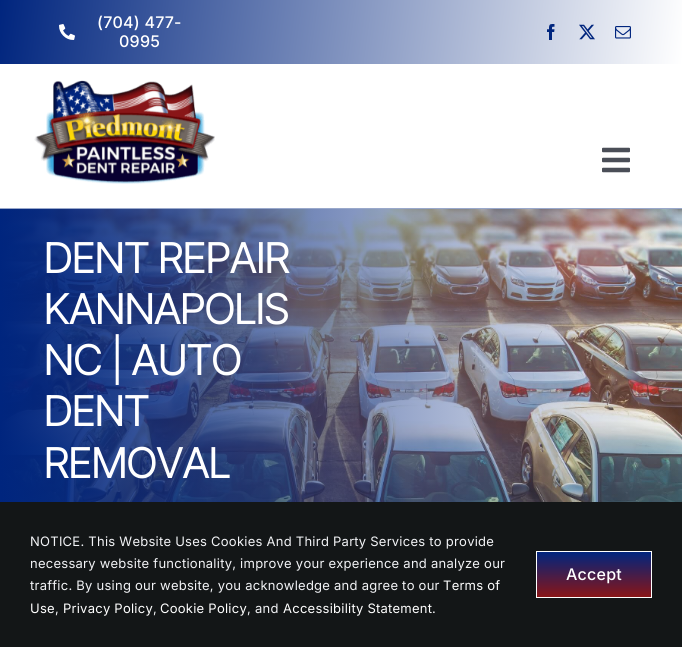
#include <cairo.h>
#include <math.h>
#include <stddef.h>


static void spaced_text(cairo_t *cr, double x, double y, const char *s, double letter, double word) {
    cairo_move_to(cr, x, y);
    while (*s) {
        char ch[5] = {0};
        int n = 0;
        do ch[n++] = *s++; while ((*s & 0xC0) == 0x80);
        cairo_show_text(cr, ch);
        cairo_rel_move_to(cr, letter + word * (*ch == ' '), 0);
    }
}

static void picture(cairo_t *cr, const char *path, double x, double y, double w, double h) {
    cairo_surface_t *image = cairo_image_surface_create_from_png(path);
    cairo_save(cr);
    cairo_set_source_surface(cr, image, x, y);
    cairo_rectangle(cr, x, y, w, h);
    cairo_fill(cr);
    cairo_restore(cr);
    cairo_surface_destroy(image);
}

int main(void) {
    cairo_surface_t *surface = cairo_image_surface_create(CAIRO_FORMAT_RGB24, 682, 647);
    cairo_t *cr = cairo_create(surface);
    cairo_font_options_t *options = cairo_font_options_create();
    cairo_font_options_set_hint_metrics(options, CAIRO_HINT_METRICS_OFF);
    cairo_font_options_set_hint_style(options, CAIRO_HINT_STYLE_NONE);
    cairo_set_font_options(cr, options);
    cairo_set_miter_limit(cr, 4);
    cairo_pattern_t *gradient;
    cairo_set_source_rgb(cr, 1, 1, 1);
    cairo_paint(cr);
    gradient = cairo_pattern_create_linear(2.2, -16, 680, 80);
    cairo_pattern_add_color_stop_rgba(gradient, 0, 0, 0.145, 0.494, 1);
    cairo_pattern_add_color_stop_rgba(gradient, 1, 1, 1, 1, 1);
    cairo_set_source(cr, gradient);
    cairo_pattern_destroy(gradient);
    cairo_rectangle(cr, 0, 0, 682, 64);
    cairo_fill(cr);
    picture(cr, "img1.png", 59, 24, 16, 16);
    cairo_select_font_face(cr, "Inter Medium", CAIRO_FONT_SLANT_NORMAL, CAIRO_FONT_WEIGHT_NORMAL);
    cairo_set_font_size(cr, 16);
    cairo_set_source_rgb(cr, 1, 1, 1);
    spaced_text(cr, 97, 28, "(704) 477-", 0.25, 0);
    spaced_text(cr, 119, 47, "0995", 0.25, 0);
    picture(cr, "img2.png", 547, 24, 8, 16);
    picture(cr, "img3.png", 579, 24, 16, 16);
    picture(cr, "img4.png", 615, 26, 16, 13);
    cairo_set_source_rgb(cr, 0.6, 0.659, 0.796);
    cairo_rectangle(cr, 0, 208, 682, 1);
    cairo_fill(cr);
    picture(cr, "img5.png", 34, 80, 181, 104);
    picture(cr, "img6.png", 602, 147, 28, 26);
    picture(cr, "img7.png", 0, 209, 682, 293);
    cairo_select_font_face(cr, "Inter Tight", CAIRO_FONT_SLANT_NORMAL, CAIRO_FONT_WEIGHT_NORMAL);
    cairo_set_font_size(cr, 42.5);
    cairo_set_source_rgb(cr, 1, 1, 1);
    spaced_text(cr, 44, 273, "DENT REPAIR", -0.6, 0);
    spaced_text(cr, 44, 324, "KANNAPOLIS", -0.6, 0);
    spaced_text(cr, 44, 375, "NC | AUTO", -0.6, 0);
    spaced_text(cr, 44, 426, "DENT", -0.6, 0);
    spaced_text(cr, 44, 478, "REMOVAL", -0.6, 0);
    cairo_set_source_rgb(cr, 0.078, 0.086, 0.09);
    cairo_rectangle(cr, 0, 502, 682, 145);
    cairo_fill(cr);
    cairo_select_font_face(cr, "Inter", CAIRO_FONT_SLANT_NORMAL, CAIRO_FONT_WEIGHT_NORMAL);
    cairo_set_font_size(cr, 13);
    cairo_set_source_rgb(cr, 0.949, 0.953, 0.961);
    spaced_text(cr, 30, 546, "NOTICE. This Website Uses Cookies And Third Party Services to provide", 0.25, 0);
    spaced_text(cr, 30, 568, "necessary website functionality, improve your experience and analyze our", 0.25, 0);
    spaced_text(cr, 30, 590, "traffic. By using our website, you acknowledge and agree to our", 0.25, 0);
    cairo_set_source_rgb(cr, 1, 1, 1);
    spaced_text(cr, 443, 590, "Terms of", 0.25, 0);
    spaced_text(cr, 30, 613, "Use", 0.25, 0);
    cairo_set_source_rgb(cr, 0.949, 0.953, 0.961);
    spaced_text(cr, 55, 613, ",", 0.25, 0);
    cairo_set_source_rgb(cr, 1, 1, 1);
    spaced_text(cr, 63, 613, "Privacy Policy", 0.25, 0);
    cairo_set_source_rgb(cr, 0.949, 0.953, 0.961);
    spaced_text(cr, 153, 613, ",", 0.25, 0);
    cairo_set_source_rgb(cr, 1, 1, 1);
    spaced_text(cr, 160, 613, "Cookie Policy", 0.25, 0);
    cairo_set_source_rgb(cr, 0.949, 0.953, 0.961);
    spaced_text(cr, 247, 613, ", and", 0.25, 0);
    cairo_set_source_rgb(cr, 1, 1, 1);
    spaced_text(cr, 283, 613, "Accessibility Statement", 0.25, 0);
    cairo_set_source_rgb(cr, 0.949, 0.953, 0.961);
    spaced_text(cr, 432, 613, ".", 0.25, 0);
    gradient = cairo_pattern_create_linear(594, 552, 594, 597);
    cairo_pattern_add_color_stop_rgba(gradient, 0, 0, 0.145, 0.494, 1);
    cairo_pattern_add_color_stop_rgba(gradient, 1, 0.537, 0.082, 0.09, 1);
    cairo_set_source(cr, gradient);
    cairo_pattern_destroy(gradient);
    cairo_rectangle(cr, 537, 552, 114, 45);
    cairo_fill(cr);
    cairo_rectangle(cr, 536.5, 551.5, 115, 46);
    cairo_set_source_rgb(cr, 1, 1, 1);
    cairo_set_line_width(cr, 1);
    cairo_stroke(cr);
    cairo_select_font_face(cr, "Inter Medium", CAIRO_FONT_SLANT_NORMAL, CAIRO_FONT_WEIGHT_NORMAL);
    cairo_set_font_size(cr, 16);
    spaced_text(cr, 566, 580, "Accept", 0.25, 0);
    cairo_surface_write_to_png(surface, "page.png");
    cairo_font_options_destroy(options);
    cairo_destroy(cr);
    cairo_surface_destroy(surface);
    return 0;
}
